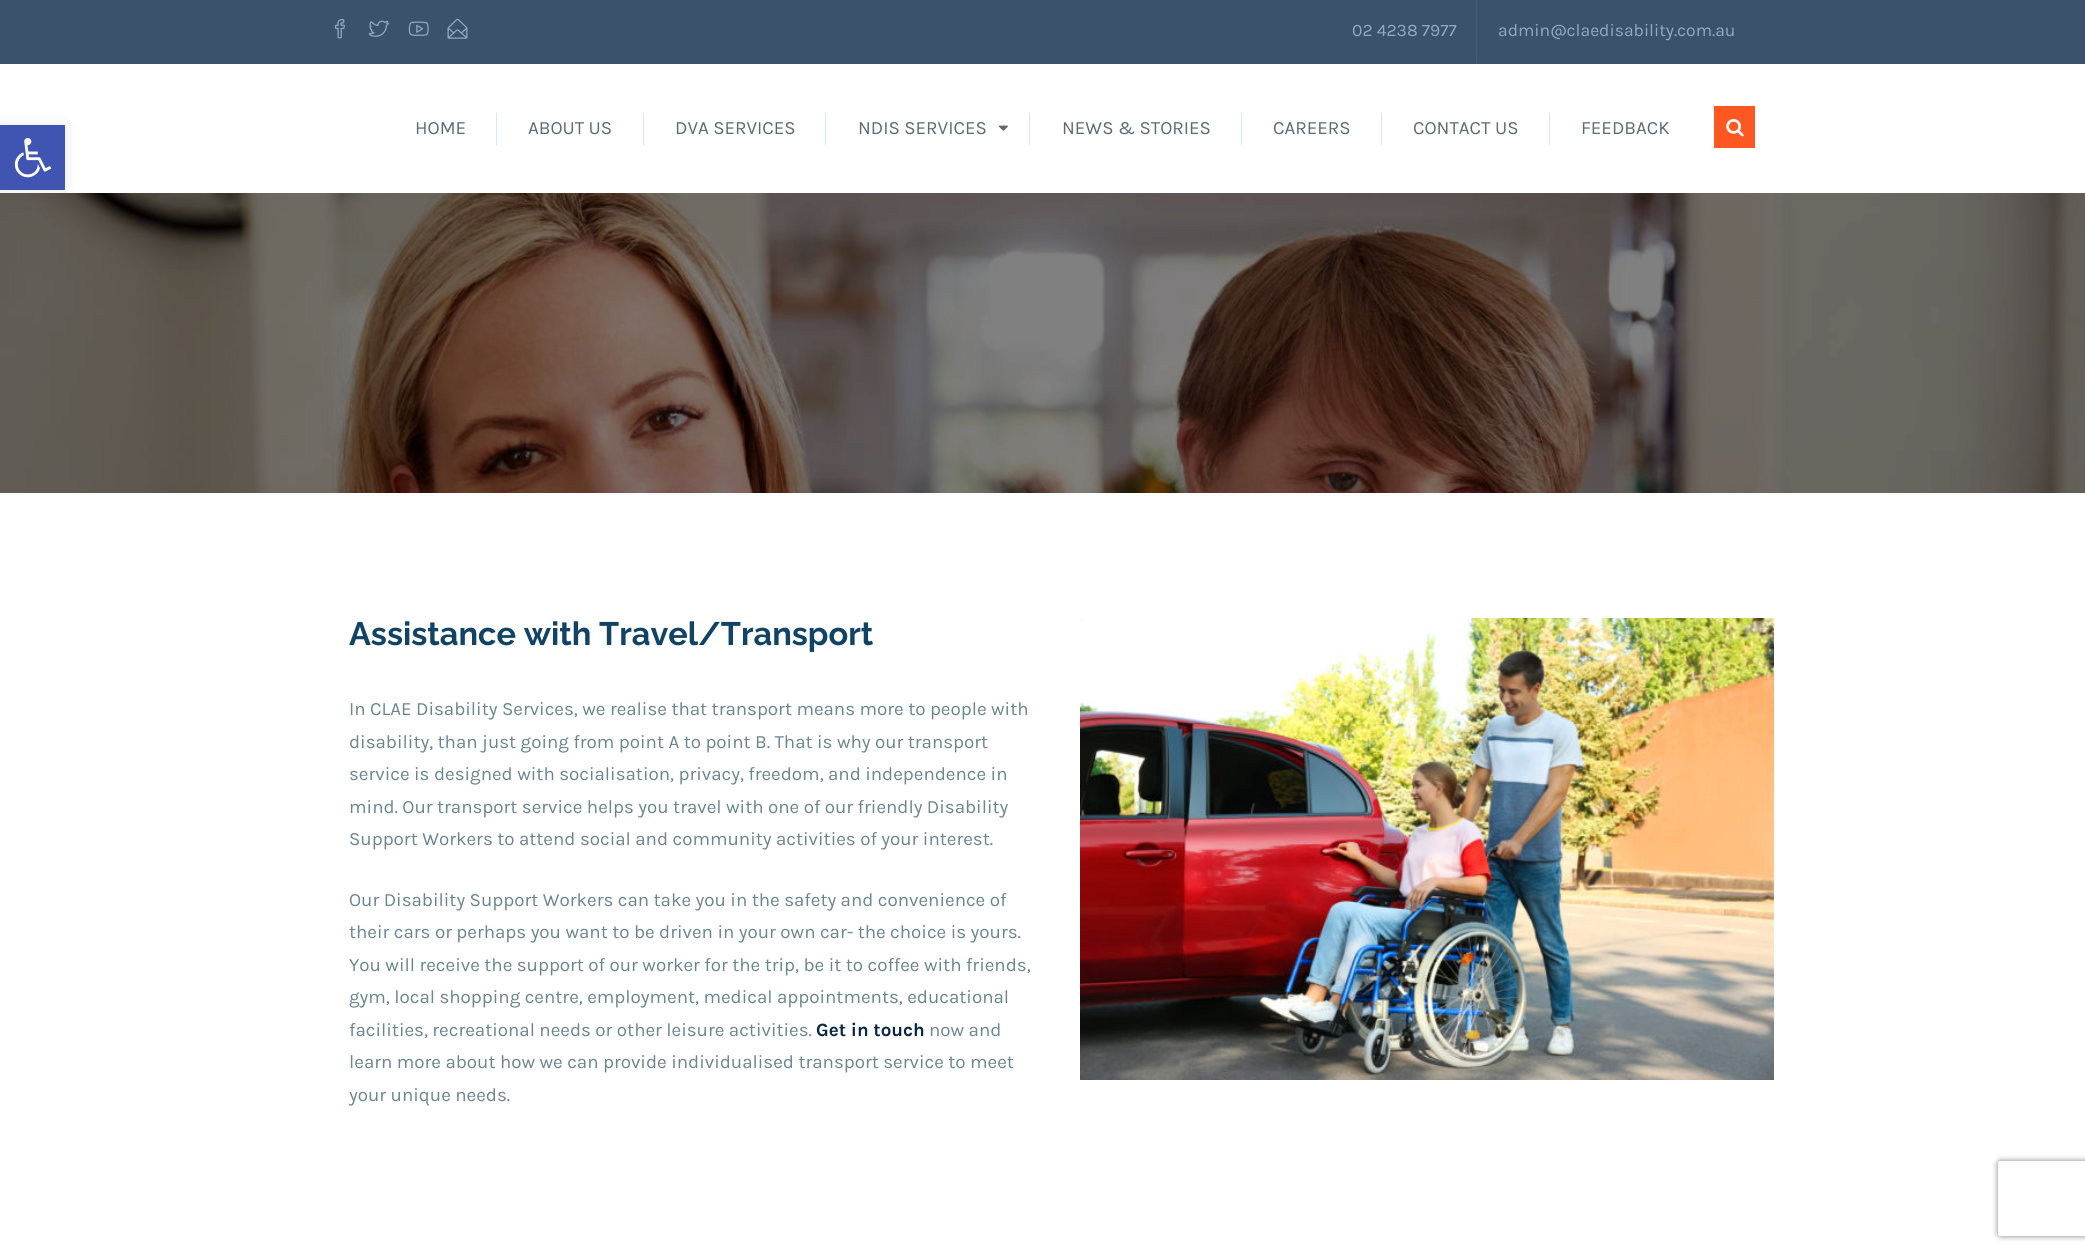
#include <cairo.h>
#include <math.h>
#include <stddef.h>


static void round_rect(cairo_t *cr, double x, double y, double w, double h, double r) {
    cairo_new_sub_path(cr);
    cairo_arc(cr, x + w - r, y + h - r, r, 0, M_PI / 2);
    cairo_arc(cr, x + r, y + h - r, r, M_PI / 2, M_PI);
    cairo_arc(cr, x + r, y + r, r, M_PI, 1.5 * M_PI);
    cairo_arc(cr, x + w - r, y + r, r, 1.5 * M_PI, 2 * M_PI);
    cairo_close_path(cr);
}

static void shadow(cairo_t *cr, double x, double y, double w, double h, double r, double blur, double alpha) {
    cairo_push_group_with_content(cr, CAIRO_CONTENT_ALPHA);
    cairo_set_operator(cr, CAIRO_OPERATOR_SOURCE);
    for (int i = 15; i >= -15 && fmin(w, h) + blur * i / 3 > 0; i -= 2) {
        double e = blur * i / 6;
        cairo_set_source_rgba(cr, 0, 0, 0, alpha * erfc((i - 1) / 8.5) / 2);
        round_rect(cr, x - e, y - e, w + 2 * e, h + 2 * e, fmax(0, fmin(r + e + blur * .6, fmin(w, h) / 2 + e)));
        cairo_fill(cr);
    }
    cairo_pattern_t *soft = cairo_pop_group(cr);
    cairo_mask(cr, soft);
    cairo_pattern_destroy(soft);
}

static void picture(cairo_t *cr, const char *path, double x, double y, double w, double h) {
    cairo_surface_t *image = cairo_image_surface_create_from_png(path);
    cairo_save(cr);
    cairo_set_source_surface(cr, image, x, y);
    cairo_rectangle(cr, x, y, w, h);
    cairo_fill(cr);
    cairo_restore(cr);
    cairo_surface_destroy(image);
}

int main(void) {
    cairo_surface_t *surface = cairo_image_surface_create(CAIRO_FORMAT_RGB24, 2085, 1253);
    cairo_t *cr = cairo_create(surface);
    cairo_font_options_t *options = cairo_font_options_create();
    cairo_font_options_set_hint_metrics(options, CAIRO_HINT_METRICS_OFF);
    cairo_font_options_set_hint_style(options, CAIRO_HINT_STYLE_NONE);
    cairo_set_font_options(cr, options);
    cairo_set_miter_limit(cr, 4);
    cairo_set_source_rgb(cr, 1, 1, 1);
    cairo_paint(cr);
    picture(cr, "img8.png", 0, 193, 2085, 300);
    cairo_set_source_rgb(cr, 0, 0, 0);
    shadow(cr, 0, 125, 65, 65, 0, 6, 0.1);
    cairo_set_source_rgb(cr, 0.251, 0.329, 0.698);
    cairo_rectangle(cr, 0, 125, 65, 65);
    cairo_fill(cr);
    picture(cr, "img1.png", 14, 138, 38, 40);
    cairo_set_source_rgb(cr, 0.227, 0.322, 0.416);
    cairo_rectangle(cr, 0, 0, 2085, 64);
    cairo_fill(cr);
    picture(cr, "img2.png", 335, 19, 10, 20);
    picture(cr, "img3.png", 368, 20, 21, 17);
    picture(cr, "img4.png", 408, 21, 21, 15);
    picture(cr, "img5.png", 447, 18, 21, 21);
    cairo_select_font_face(cr, "Karla", CAIRO_FONT_SLANT_NORMAL, CAIRO_FONT_WEIGHT_NORMAL);
    cairo_set_font_size(cr, 17.5);
    cairo_set_source_rgb(cr, 0.58, 0.663, 0.749);
    cairo_move_to(cr, 1352, 36);
    cairo_show_text(cr, "02 4238 7977");
    cairo_set_source_rgb(cr, 0.271, 0.369, 0.467);
    cairo_rectangle(cr, 1476, 0, 1, 63);
    cairo_fill(cr);
    cairo_set_source_rgb(cr, 0.58, 0.663, 0.749);
    cairo_move_to(cr, 1498, 36);
    cairo_show_text(cr, "admin@claedisability.com.au");
    cairo_set_font_size(cr, 18.75);
    cairo_set_source_rgb(cr, 0.357, 0.416, 0.459);
    cairo_move_to(cr, 415, 134);
    cairo_show_text(cr, "HOME");
    cairo_set_source_rgb(cr, 0.851, 0.902, 0.922);
    cairo_rectangle(cr, 496, 113, 1, 32);
    cairo_fill(cr);
    cairo_set_source_rgb(cr, 0.357, 0.416, 0.459);
    cairo_move_to(cr, 528, 134);
    cairo_show_text(cr, "ABOUT US");
    cairo_set_source_rgb(cr, 0.851, 0.902, 0.922);
    cairo_rectangle(cr, 643, 113, 1, 32);
    cairo_fill(cr);
    cairo_set_source_rgb(cr, 0.357, 0.416, 0.459);
    cairo_move_to(cr, 675, 134);
    cairo_show_text(cr, "DVA SERVICES");
    cairo_set_source_rgb(cr, 0.851, 0.902, 0.922);
    cairo_rectangle(cr, 825, 113, 1, 32);
    cairo_fill(cr);
    cairo_set_source_rgb(cr, 0.357, 0.416, 0.459);
    cairo_move_to(cr, 858, 134);
    cairo_show_text(cr, "NDIS SERVICES");
    picture(cr, "img6.png", 998, 125, 10, 6);
    cairo_set_source_rgb(cr, 0.851, 0.902, 0.922);
    cairo_rectangle(cr, 1029, 113, 1, 32);
    cairo_fill(cr);
    cairo_set_source_rgb(cr, 0.357, 0.416, 0.459);
    cairo_move_to(cr, 1062, 134);
    cairo_show_text(cr, "NEWS & STORIES");
    cairo_set_source_rgb(cr, 0.851, 0.902, 0.922);
    cairo_rectangle(cr, 1241, 113, 1, 32);
    cairo_fill(cr);
    cairo_set_source_rgb(cr, 0.357, 0.416, 0.459);
    cairo_move_to(cr, 1273, 134);
    cairo_show_text(cr, "CAREERS");
    cairo_set_source_rgb(cr, 0.851, 0.902, 0.922);
    cairo_rectangle(cr, 1381, 113, 1, 32);
    cairo_fill(cr);
    cairo_set_source_rgb(cr, 0.357, 0.416, 0.459);
    cairo_move_to(cr, 1413, 134);
    cairo_show_text(cr, "CONTACT US");
    cairo_set_source_rgb(cr, 0.851, 0.902, 0.922);
    cairo_rectangle(cr, 1549, 113, 1, 32);
    cairo_fill(cr);
    cairo_set_source_rgb(cr, 0.357, 0.416, 0.459);
    cairo_move_to(cr, 1581, 134);
    cairo_show_text(cr, "FEEDBACK");
    cairo_set_source_rgb(cr, 0.996, 0.341, 0.133);
    cairo_rectangle(cr, 1714, 106, 41, 42);
    cairo_fill(cr);
    picture(cr, "img7.png", 1726, 119, 18, 18);
    cairo_select_font_face(cr, "Raleway", CAIRO_FONT_SLANT_NORMAL, CAIRO_FONT_WEIGHT_BOLD);
    cairo_set_font_size(cr, 32.5);
    cairo_set_source_rgb(cr, 0.067, 0.263, 0.4);
    cairo_move_to(cr, 349, 645);
    cairo_show_text(cr, "Assistance with Travel/Transport");
    cairo_select_font_face(cr, "Karla", CAIRO_FONT_SLANT_NORMAL, CAIRO_FONT_WEIGHT_NORMAL);
    cairo_set_font_size(cr, 18.75);
    cairo_set_source_rgb(cr, 0.412, 0.522, 0.569);
    cairo_move_to(cr, 349, 715);
    cairo_show_text(cr, "In CLAE Disability Services, we realise that transport means more to people with");
    cairo_move_to(cr, 349, 748);
    cairo_show_text(cr, "disability, than just going from point A to point B. That is why our transport");
    cairo_move_to(cr, 349, 780);
    cairo_show_text(cr, "service is designed with socialisation, privacy, freedom, and independence in");
    cairo_move_to(cr, 349, 813);
    cairo_show_text(cr, "mind. Our transport service helps you travel with one of our friendly Disability");
    cairo_move_to(cr, 349, 845);
    cairo_show_text(cr, "Support Workers to attend social and community activities of your interest.");
    cairo_move_to(cr, 349, 906);
    cairo_show_text(cr, "Our Disability Support Workers can take you in the safety and convenience of");
    cairo_move_to(cr, 349, 938);
    cairo_show_text(cr, "their cars or perhaps you want to be driven in your own car- the choice is yours.");
    cairo_move_to(cr, 349, 971);
    cairo_show_text(cr, "You will receive the support of our worker for the trip, be it to coffee with friends,");
    cairo_move_to(cr, 349, 1003);
    cairo_show_text(cr, "gym, local shopping centre, employment, medical appointments, educational");
    cairo_move_to(cr, 349, 1036);
    cairo_show_text(cr, "facilities, recreational needs or other leisure activities.");
    cairo_select_font_face(cr, "Karla", CAIRO_FONT_SLANT_NORMAL, CAIRO_FONT_WEIGHT_BOLD);
    cairo_set_source_rgb(cr, 0.027, 0.149, 0.263);
    cairo_move_to(cr, 816, 1036);
    cairo_show_text(cr, "Get in touch");
    cairo_select_font_face(cr, "Karla", CAIRO_FONT_SLANT_NORMAL, CAIRO_FONT_WEIGHT_NORMAL);
    cairo_set_source_rgb(cr, 0.412, 0.522, 0.569);
    cairo_move_to(cr, 929, 1036);
    cairo_show_text(cr, "now and");
    cairo_move_to(cr, 349, 1068);
    cairo_show_text(cr, "learn more about how we can provide individualised transport service to meet");
    cairo_move_to(cr, 349, 1101);
    cairo_show_text(cr, "your unique needs.");
    picture(cr, "img9.png", 1080, 618, 694, 462);
    cairo_save(cr);
    cairo_set_fill_rule(cr, CAIRO_FILL_RULE_EVEN_ODD);
    cairo_new_path(cr);
    cairo_move_to(cr, 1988, 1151);
    cairo_line_to(cr, 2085, 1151);
    cairo_line_to(cr, 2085, 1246);
    cairo_line_to(cr, 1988, 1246);
    cairo_close_path(cr);
    cairo_move_to(cr, 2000.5, 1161);
    cairo_line_to(cr, 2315.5, 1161);
    cairo_curve_to(cr, 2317, 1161, 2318, 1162, 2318, 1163.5);
    cairo_line_to(cr, 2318, 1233.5);
    cairo_curve_to(cr, 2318, 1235, 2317, 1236, 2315.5, 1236);
    cairo_line_to(cr, 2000.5, 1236);
    cairo_curve_to(cr, 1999, 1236, 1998, 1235, 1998, 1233.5);
    cairo_line_to(cr, 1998, 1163.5);
    cairo_curve_to(cr, 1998, 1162, 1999, 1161, 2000.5, 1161);
    cairo_close_path(cr);
    cairo_clip(cr);
    cairo_set_source_rgb(cr, 0.502, 0.502, 0.502);
    shadow(cr, 1998, 1161, 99, 75, 2.5, 3, 1);
    cairo_restore(cr);
    cairo_surface_write_to_png(surface, "page.png");
    cairo_font_options_destroy(options);
    cairo_destroy(cr);
    cairo_surface_destroy(surface);
    return 0;
}
